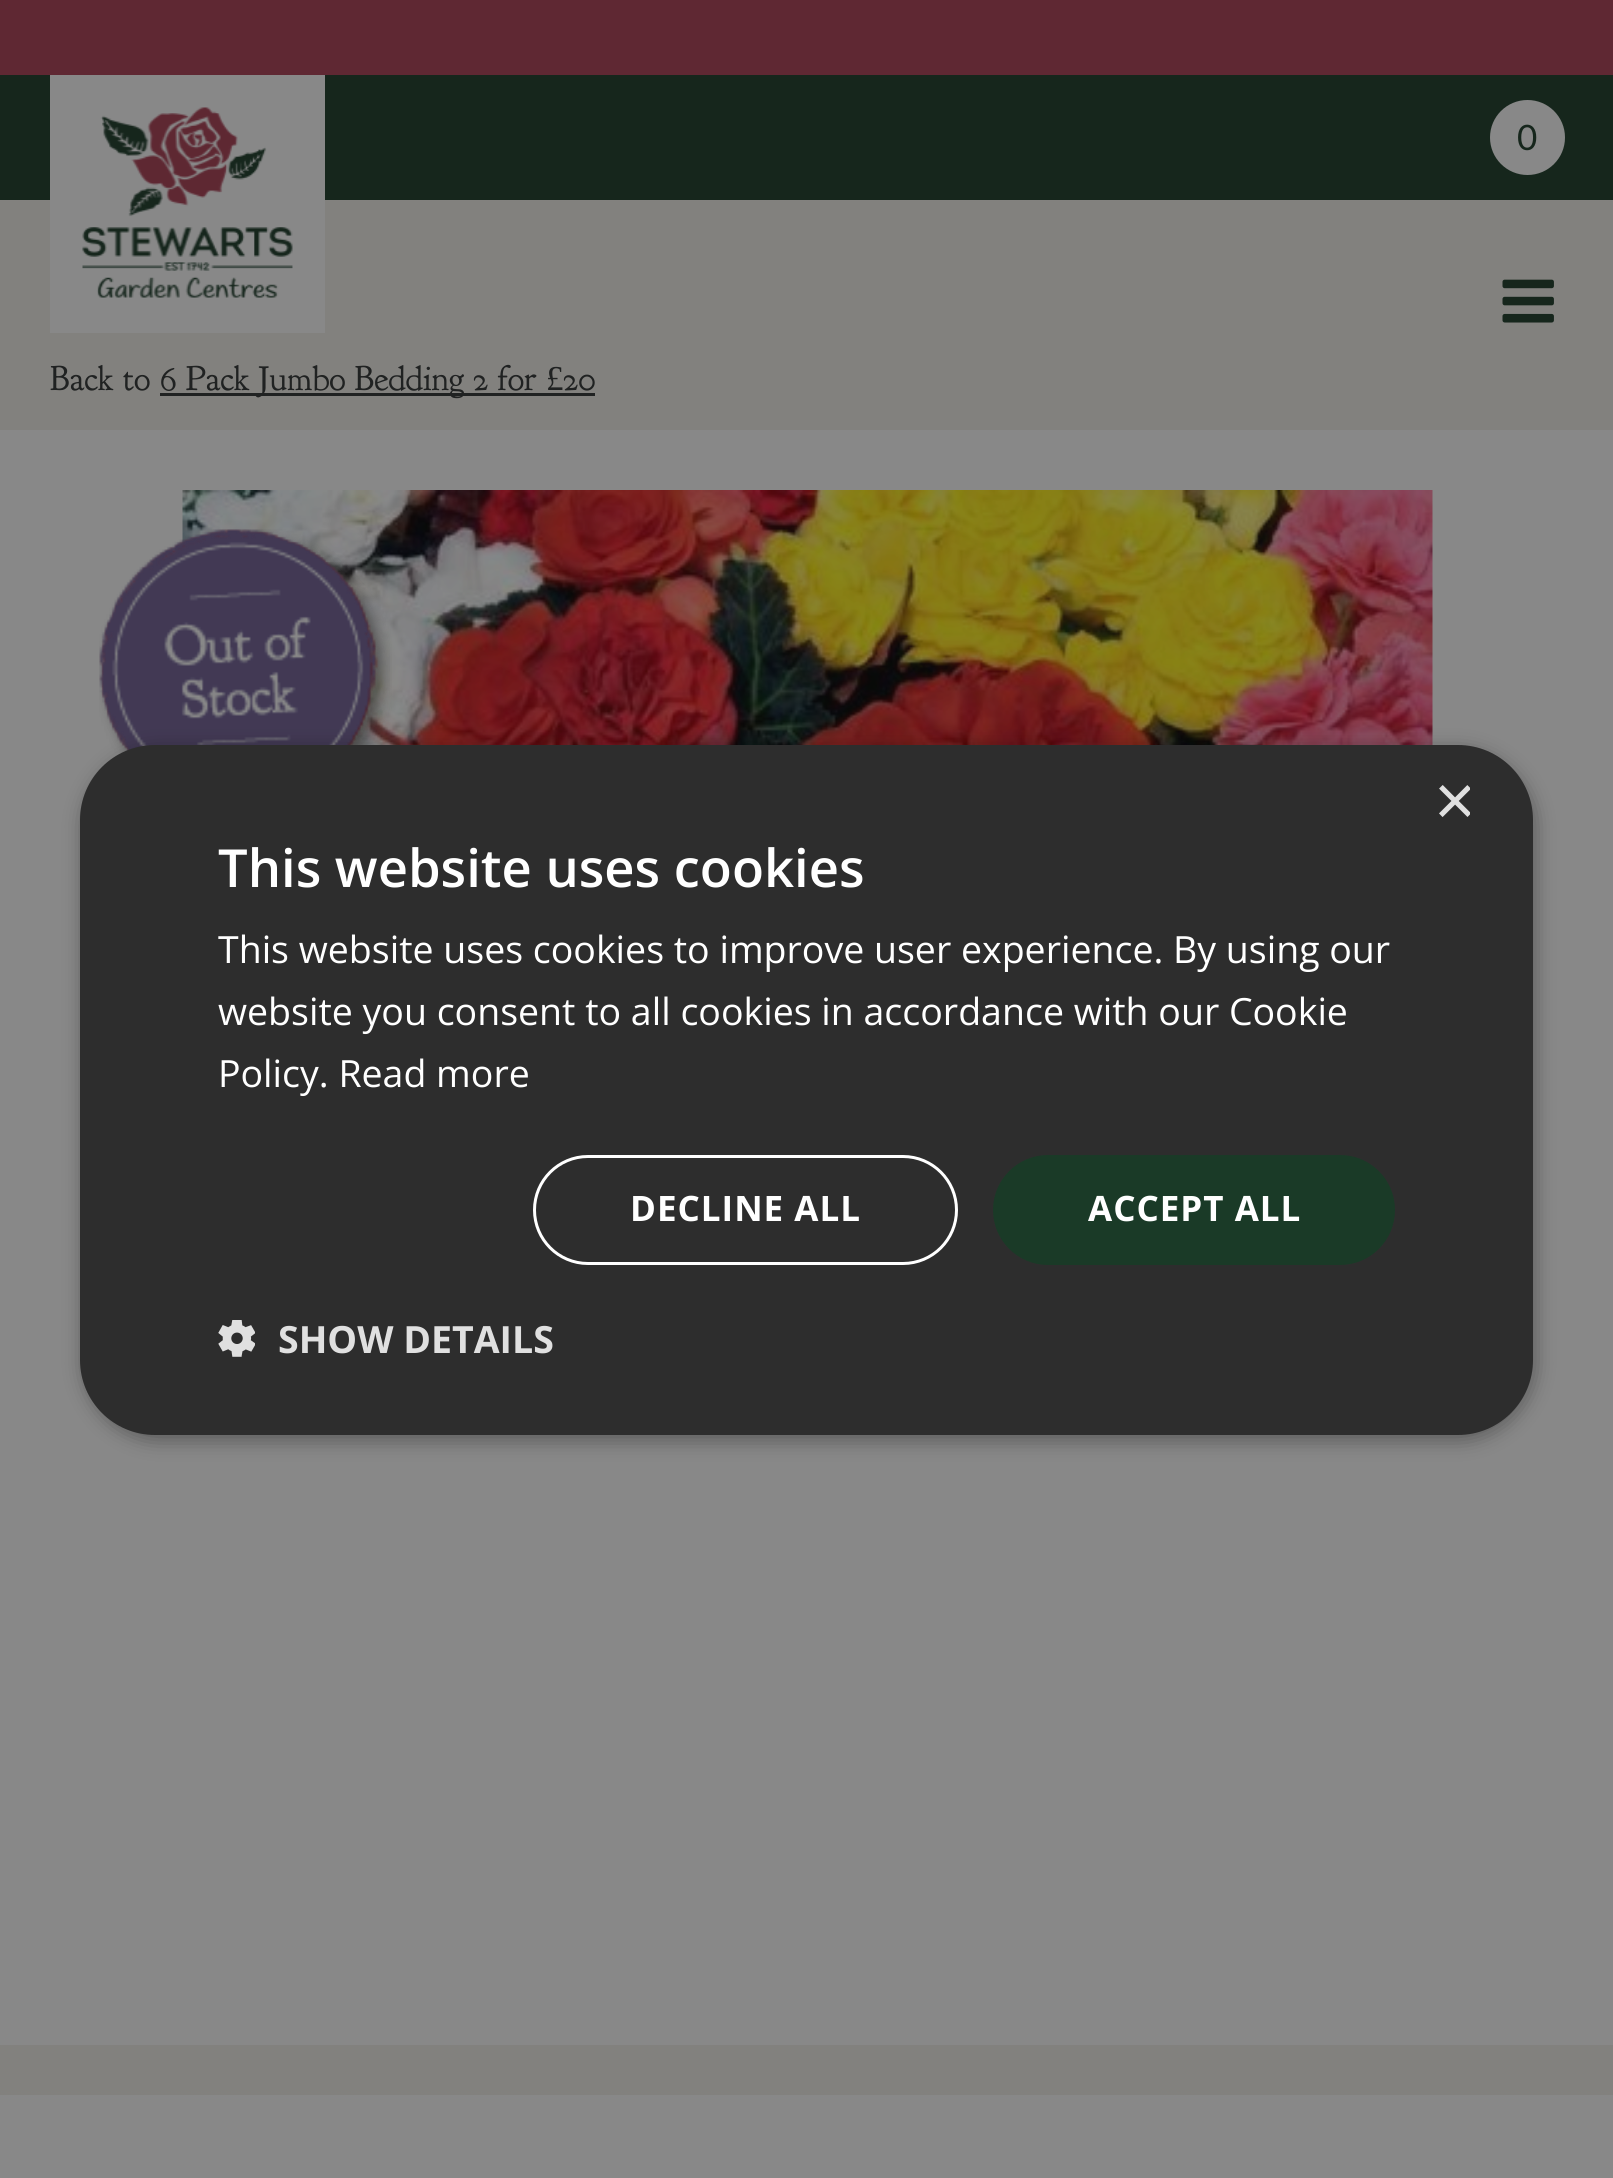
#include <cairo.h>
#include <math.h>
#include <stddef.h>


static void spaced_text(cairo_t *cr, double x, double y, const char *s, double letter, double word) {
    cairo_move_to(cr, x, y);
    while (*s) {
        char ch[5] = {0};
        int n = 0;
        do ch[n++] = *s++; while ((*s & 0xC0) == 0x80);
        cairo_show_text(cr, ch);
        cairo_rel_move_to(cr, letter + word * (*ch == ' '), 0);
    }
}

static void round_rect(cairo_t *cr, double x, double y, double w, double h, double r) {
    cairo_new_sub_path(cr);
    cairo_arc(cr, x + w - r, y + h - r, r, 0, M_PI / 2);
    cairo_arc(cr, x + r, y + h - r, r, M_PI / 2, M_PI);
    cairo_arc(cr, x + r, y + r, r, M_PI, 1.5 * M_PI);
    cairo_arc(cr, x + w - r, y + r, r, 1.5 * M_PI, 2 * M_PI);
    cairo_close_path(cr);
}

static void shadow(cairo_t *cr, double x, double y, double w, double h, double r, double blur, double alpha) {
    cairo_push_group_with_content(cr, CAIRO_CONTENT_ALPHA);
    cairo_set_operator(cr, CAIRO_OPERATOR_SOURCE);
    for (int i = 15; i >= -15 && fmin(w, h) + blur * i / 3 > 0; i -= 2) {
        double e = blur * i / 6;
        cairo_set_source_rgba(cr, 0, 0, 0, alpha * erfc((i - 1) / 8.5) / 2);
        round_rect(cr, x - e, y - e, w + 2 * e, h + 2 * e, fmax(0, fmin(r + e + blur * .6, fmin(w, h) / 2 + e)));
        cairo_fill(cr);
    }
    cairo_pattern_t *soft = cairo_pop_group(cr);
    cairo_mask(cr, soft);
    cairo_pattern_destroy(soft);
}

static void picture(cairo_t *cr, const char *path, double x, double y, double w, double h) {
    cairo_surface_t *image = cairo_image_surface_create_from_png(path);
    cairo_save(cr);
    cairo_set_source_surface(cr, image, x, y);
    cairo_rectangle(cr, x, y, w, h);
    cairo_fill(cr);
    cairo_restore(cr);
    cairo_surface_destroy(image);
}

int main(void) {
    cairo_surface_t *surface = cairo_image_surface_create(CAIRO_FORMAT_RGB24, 1613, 2178);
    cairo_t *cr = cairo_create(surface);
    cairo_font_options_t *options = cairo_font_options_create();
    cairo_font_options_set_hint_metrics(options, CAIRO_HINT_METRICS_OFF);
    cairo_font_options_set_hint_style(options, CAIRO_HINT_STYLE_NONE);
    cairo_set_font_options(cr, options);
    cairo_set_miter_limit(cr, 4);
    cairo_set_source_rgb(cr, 0.51, 0.506, 0.494);
    cairo_paint(cr);
    cairo_set_source_rgb(cr, 0.086, 0.149, 0.11);
    cairo_rectangle(cr, 0, 75, 1613, 125);
    cairo_fill(cr);
    cairo_set_source_rgb(cr, 0.373, 0.157, 0.2);
    cairo_rectangle(cr, 0, 0, 1613, 75);
    cairo_fill(cr);
    cairo_set_source_rgb(cr, 0.533, 0.533, 0.533);
    cairo_rectangle(cr, 50, 75, 275, 258);
    cairo_fill(cr);
    picture(cr, "img1.png", 82, 107, 211, 191);
    cairo_arc(cr, 1527.5, 137.5, 37.5, 0, 2 * M_PI);
    cairo_fill(cr);
    cairo_select_font_face(cr, "Lato", CAIRO_FONT_SLANT_NORMAL, CAIRO_FONT_WEIGHT_NORMAL);
    cairo_set_font_size(cr, 35);
    cairo_set_source_rgb(cr, 0.086, 0.149, 0.11);
    cairo_move_to(cr, 1517, 150);
    cairo_show_text(cr, "0");
    picture(cr, "img2.png", 1502, 279, 52, 44);
    cairo_set_source_rgb(cr, 0.533, 0.533, 0.533);
    cairo_rectangle(cr, 0, 430, 1613, 1615);
    cairo_fill(cr);
    picture(cr, "img3.png", 182, 490, 1251, 255);
    picture(cr, "img4.png", 99, 529, 293, 224);
    picture(cr, "img5.png", 99, 529, 291, 224);
    cairo_rectangle(cr, 0, 2095, 1613, 83);
    cairo_fill(cr);
    cairo_select_font_face(cr, "Goudy Bookletter 1911", CAIRO_FONT_SLANT_NORMAL, CAIRO_FONT_WEIGHT_NORMAL);
    cairo_set_source_rgb(cr, 0.125, 0.133, 0.133);
    cairo_move_to(cr, 50, 390);
    cairo_show_text(cr, "Back to");
    cairo_rectangle(cr, 160, 393, 435, 3);
    cairo_fill(cr);
    cairo_move_to(cr, 160, 390);
    cairo_show_text(cr, "6 Pack Jumbo Bedding 2 for");
    cairo_select_font_face(cr, "Liberation Serif", CAIRO_FONT_SLANT_NORMAL, CAIRO_FONT_WEIGHT_NORMAL);
    cairo_move_to(cr, 546, 390);
    cairo_show_text(cr, "£");
    cairo_select_font_face(cr, "Goudy Bookletter 1911", CAIRO_FONT_SLANT_NORMAL, CAIRO_FONT_WEIGHT_NORMAL);
    cairo_move_to(cr, 563, 390);
    cairo_show_text(cr, "20");
    cairo_set_source_rgb(cr, 0, 0, 0);
    shadow(cr, 83, 750, 1452, 690, 75, 10, 0.35);
    cairo_set_source_rgb(cr, 0.176, 0.176, 0.176);
    round_rect(cr, 80, 745, 1453, 690, 75);
    cairo_fill(cr);
    cairo_save(cr);
    cairo_rectangle(cr, 1433, 785, 37, 38);
    cairo_clip(cr);
    cairo_select_font_face(cr, "Liberation Sans", CAIRO_FONT_SLANT_NORMAL, CAIRO_FONT_WEIGHT_NORMAL);
    cairo_set_font_size(cr, 72);
    cairo_set_source_rgb(cr, 0.878, 0.878, 0.878);
    cairo_move_to(cr, 1434, 825);
    cairo_show_text(cr, "×");
    cairo_restore(cr);
    cairo_select_font_face(cr, "Open Sans SemiBold", CAIRO_FONT_SLANT_NORMAL, CAIRO_FONT_WEIGHT_NORMAL);
    cairo_set_font_size(cr, 52.5);
    cairo_set_source_rgb(cr, 1, 1, 1);
    cairo_move_to(cr, 218, 887);
    cairo_show_text(cr, "This website uses cookies");
    cairo_select_font_face(cr, "Open Sans", CAIRO_FONT_SLANT_NORMAL, CAIRO_FONT_WEIGHT_NORMAL);
    cairo_set_font_size(cr, 37.5);
    cairo_move_to(cr, 218, 963);
    cairo_show_text(cr, "This website uses cookies to improve user experience. By using our");
    cairo_move_to(cr, 218, 1025);
    cairo_show_text(cr, "website you consent to all cookies in accordance with our Cookie");
    cairo_move_to(cr, 218, 1087);
    cairo_show_text(cr, "Policy. Read more");
    round_rect(cr, 534.5, 1156.5, 422, 107, 53.5);
    cairo_set_line_width(cr, 3);
    cairo_stroke(cr);
    cairo_select_font_face(cr, "Open Sans", CAIRO_FONT_SLANT_NORMAL, CAIRO_FONT_WEIGHT_BOLD);
    cairo_set_font_size(cr, 35);
    spaced_text(cr, 630, 1221, "DECLINE ALL", 1, 0);
    cairo_set_source_rgb(cr, 0.102, 0.227, 0.153);
    round_rect(cr, 993, 1155, 402, 110, 55);
    cairo_fill(cr);
    cairo_set_source_rgb(cr, 1, 1, 1);
    spaced_text(cr, 1088, 1221, "ACCEPT ALL", 1, 0);
    picture(cr, "img6.png", 218, 1320, 37, 37);
    cairo_set_font_size(cr, 37.5);
    cairo_set_source_rgb(cr, 0.878, 0.878, 0.878);
    cairo_move_to(cr, 278, 1353);
    cairo_show_text(cr, "SHOW DETAILS");
    cairo_surface_write_to_png(surface, "page.png");
    cairo_font_options_destroy(options);
    cairo_destroy(cr);
    cairo_surface_destroy(surface);
    return 0;
}
